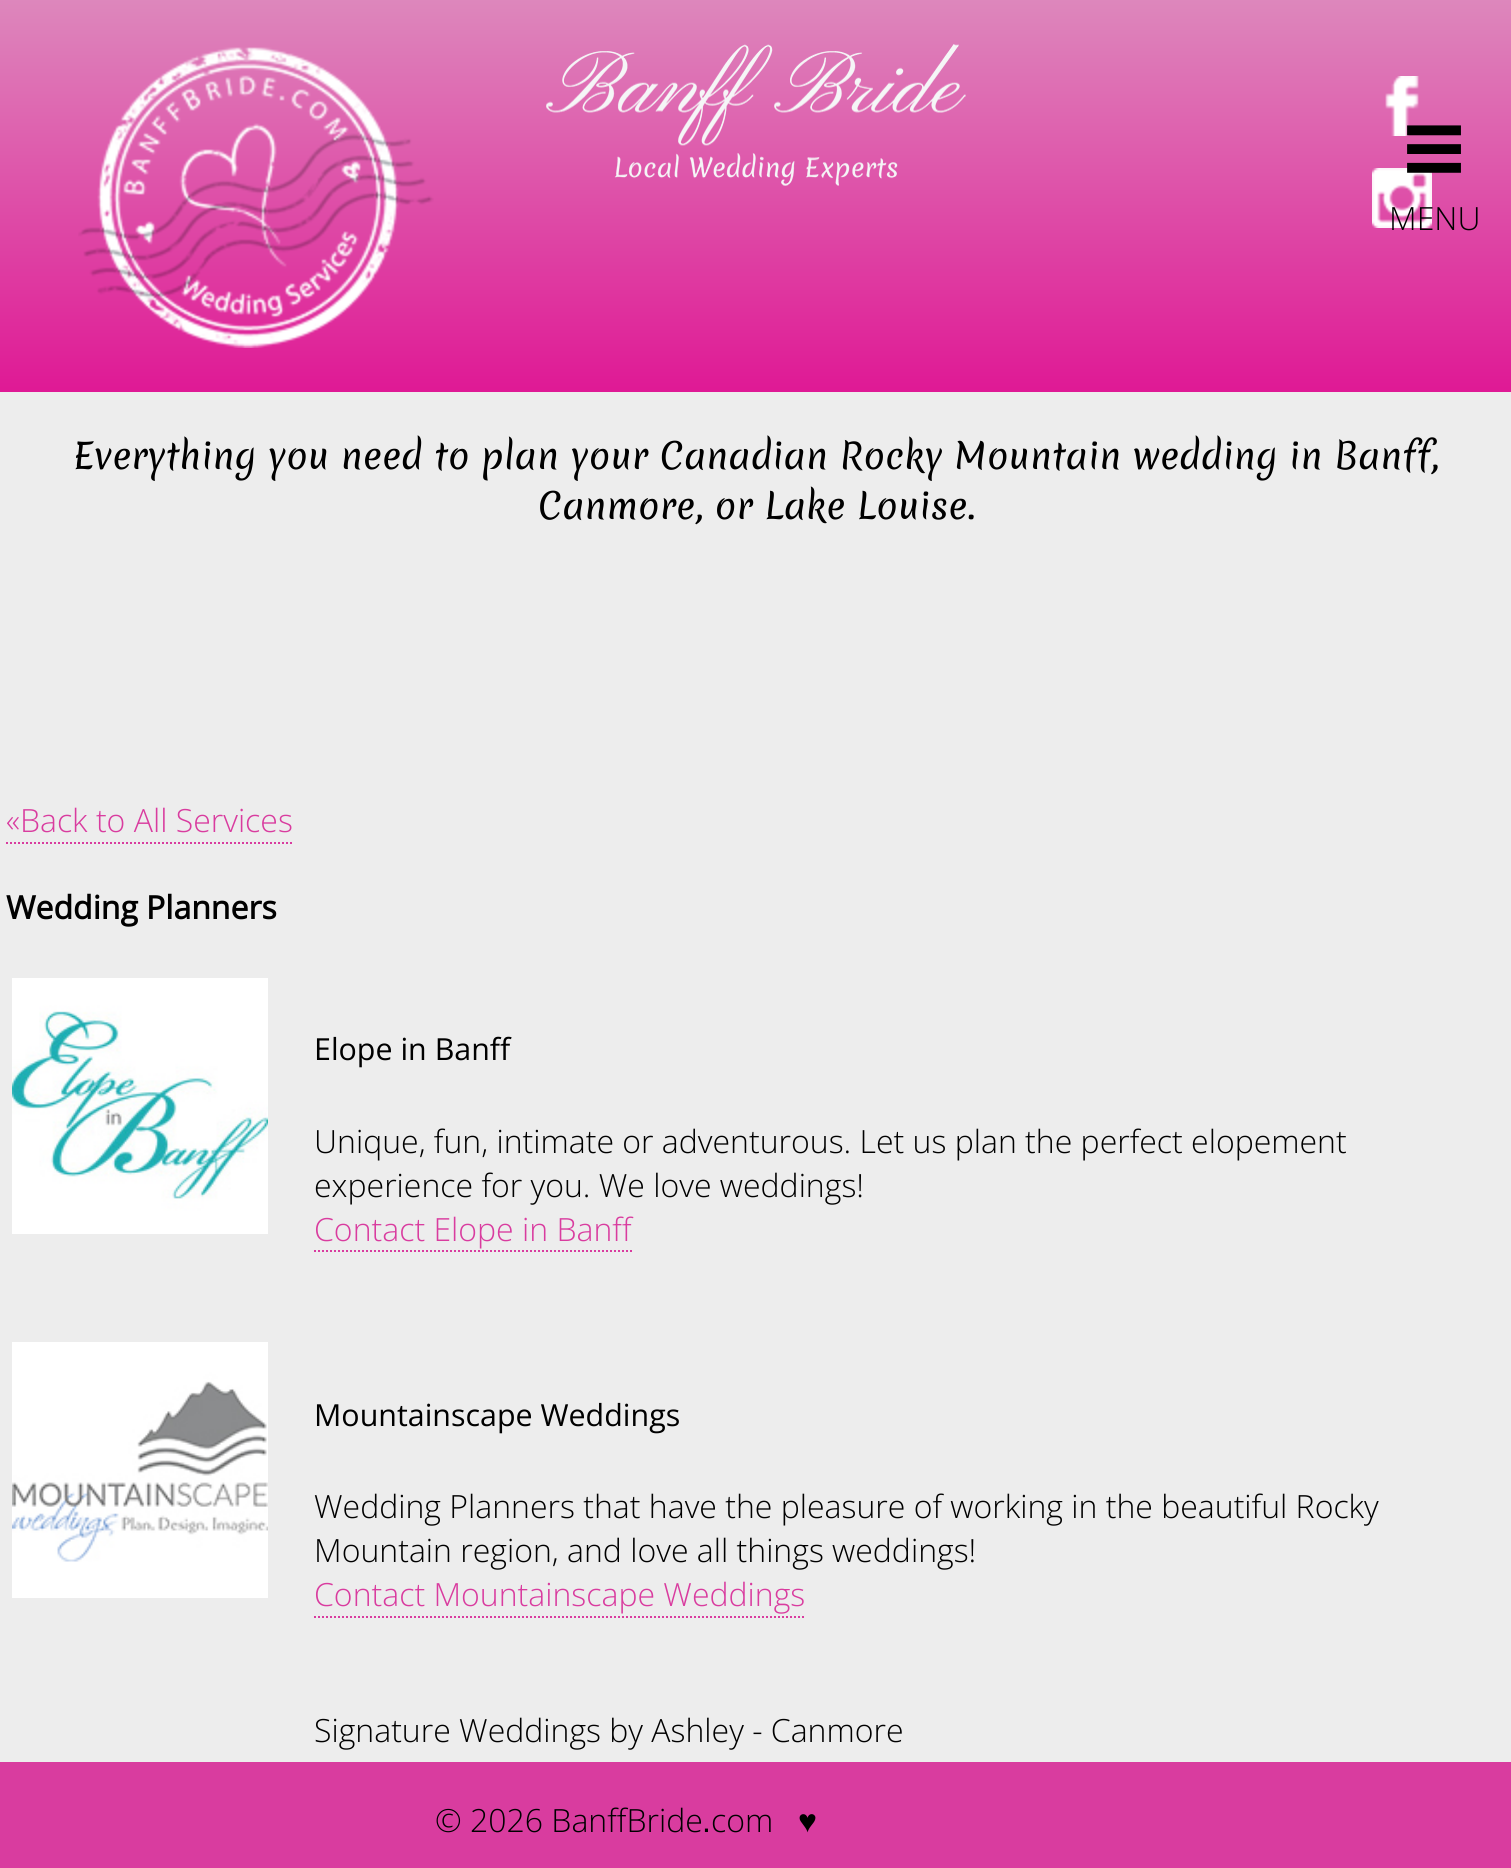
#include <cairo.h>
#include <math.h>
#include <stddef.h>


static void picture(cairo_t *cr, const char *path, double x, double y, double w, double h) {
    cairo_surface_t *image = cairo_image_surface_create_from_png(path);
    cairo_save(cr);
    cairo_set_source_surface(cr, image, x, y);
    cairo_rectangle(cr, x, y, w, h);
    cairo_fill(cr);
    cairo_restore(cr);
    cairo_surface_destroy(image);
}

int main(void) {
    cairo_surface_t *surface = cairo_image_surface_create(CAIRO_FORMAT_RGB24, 1511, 1868);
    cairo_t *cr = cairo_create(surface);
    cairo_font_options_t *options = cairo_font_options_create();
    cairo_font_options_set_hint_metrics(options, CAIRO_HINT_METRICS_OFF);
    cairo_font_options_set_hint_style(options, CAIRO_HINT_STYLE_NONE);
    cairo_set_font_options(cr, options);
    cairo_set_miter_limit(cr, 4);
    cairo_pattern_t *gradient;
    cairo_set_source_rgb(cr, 0.929, 0.929, 0.929);
    cairo_paint(cr);
    gradient = cairo_pattern_create_linear(756, 0, 756, 392);
    cairo_pattern_add_color_stop_rgba(gradient, 0, 0.867, 0.529, 0.737, 1);
    cairo_pattern_add_color_stop_rgba(gradient, 1, 0.875, 0.098, 0.584, 1);
    cairo_set_source(cr, gradient);
    cairo_pattern_destroy(gradient);
    cairo_rectangle(cr, 0, 0, 1511, 392);
    cairo_fill(cr);
    picture(cr, "img1.png", 78, 47, 356, 301);
    picture(cr, "img2.png", 546, 44, 420, 142);
    picture(cr, "img3.png", 1385, 76, 34, 60);
    picture(cr, "img4.png", 1372, 168, 60, 60);
    cairo_select_font_face(cr, "DejaVu Sans", CAIRO_FONT_SLANT_NORMAL, CAIRO_FONT_WEIGHT_BOLD);
    cairo_set_font_size(cr, 86);
    cairo_set_source_rgb(cr, 0, 0, 0);
    cairo_move_to(cr, 1398, 176);
    cairo_show_text(cr, "≡");
    cairo_select_font_face(cr, "Open Sans Light", CAIRO_FONT_SLANT_NORMAL, CAIRO_FONT_WEIGHT_NORMAL);
    cairo_set_font_size(cr, 32);
    cairo_move_to(cr, 1389, 230);
    cairo_show_text(cr, "MENU");
    cairo_select_font_face(cr, "Merienda", CAIRO_FONT_SLANT_NORMAL, CAIRO_FONT_WEIGHT_NORMAL);
    cairo_set_font_size(cr, 35.2);
    cairo_move_to(cr, 73, 469);
    cairo_show_text(cr, "Everything you need to plan your Canadian Rocky Mountain wedding in Banff,");
    cairo_move_to(cr, 538, 519);
    cairo_show_text(cr, "Canmore, or Lake Louise.");
    cairo_select_font_face(cr, "Open Sans Light", CAIRO_FONT_SLANT_NORMAL, CAIRO_FONT_WEIGHT_NORMAL);
    cairo_set_font_size(cr, 32);
    cairo_set_source_rgb(cr, 0.851, 0.235, 0.624);
    cairo_move_to(cr, 6, 832);
    cairo_show_text(cr, "«Back to All Services");
    cairo_new_path(cr);
    cairo_move_to(cr, 6, 843);
    cairo_line_to(cr, 292, 843);
    cairo_set_dash(cr, (double[]){2, 2}, 2, 0);
    cairo_stroke(cr);
    cairo_select_font_face(cr, "Open Sans", CAIRO_FONT_SLANT_NORMAL, CAIRO_FONT_WEIGHT_BOLD);
    cairo_set_source_rgb(cr, 0, 0, 0);
    cairo_move_to(cr, 6, 919);
    cairo_show_text(cr, "Wedding Planners");
    picture(cr, "img5.png", 12, 978, 256, 256);
    cairo_select_font_face(cr, "Open Sans", CAIRO_FONT_SLANT_NORMAL, CAIRO_FONT_WEIGHT_NORMAL);
    cairo_set_font_size(cr, 30.4);
    cairo_move_to(cr, 314, 1060);
    cairo_show_text(cr, "Elope in Banff");
    cairo_select_font_face(cr, "Open Sans Light", CAIRO_FONT_SLANT_NORMAL, CAIRO_FONT_WEIGHT_NORMAL);
    cairo_set_font_size(cr, 32);
    cairo_move_to(cr, 314, 1153);
    cairo_show_text(cr, "Unique, fun, intimate or adventurous. Let us plan the perfect elopement");
    cairo_move_to(cr, 314, 1197);
    cairo_show_text(cr, "experience for you. We love weddings!");
    cairo_set_source_rgb(cr, 0.851, 0.235, 0.624);
    cairo_move_to(cr, 314, 1241);
    cairo_show_text(cr, "Contact Elope in Banff");
    cairo_new_path(cr);
    cairo_move_to(cr, 314, 1251);
    cairo_line_to(cr, 632, 1251);
    cairo_stroke(cr);
    picture(cr, "img6.png", 12, 1342, 256, 256);
    cairo_select_font_face(cr, "Open Sans", CAIRO_FONT_SLANT_NORMAL, CAIRO_FONT_WEIGHT_NORMAL);
    cairo_set_font_size(cr, 30.4);
    cairo_set_source_rgb(cr, 0, 0, 0);
    cairo_move_to(cr, 314, 1426);
    cairo_show_text(cr, "Mountainscape Weddings");
    cairo_select_font_face(cr, "Open Sans Light", CAIRO_FONT_SLANT_NORMAL, CAIRO_FONT_WEIGHT_NORMAL);
    cairo_set_font_size(cr, 32);
    cairo_move_to(cr, 314, 1518);
    cairo_show_text(cr, "Wedding Planners that have the pleasure of working in the beautiful Rocky");
    cairo_move_to(cr, 314, 1562);
    cairo_show_text(cr, "Mountain region, and love all things weddings!");
    cairo_set_source_rgb(cr, 0.851, 0.235, 0.624);
    cairo_move_to(cr, 314, 1606);
    cairo_show_text(cr, "Contact Mountainscape Weddings");
    cairo_new_path(cr);
    cairo_move_to(cr, 314, 1617);
    cairo_line_to(cr, 804, 1617);
    cairo_stroke(cr);
    cairo_set_source_rgb(cr, 0, 0, 0);
    cairo_move_to(cr, 314, 1742);
    cairo_show_text(cr, "Signature Weddings by Ashley - Canmore");
    cairo_set_source_rgb(cr, 0.851, 0.235, 0.624);
    cairo_rectangle(cr, 0, 1762, 1511, 106);
    cairo_fill(cr);
    cairo_set_source_rgb(cr, 0, 0, 0);
    cairo_move_to(cr, 435, 1832);
    cairo_show_text(cr, "© 2026 BanffBride");
    cairo_select_font_face(cr, "Liberation Sans", CAIRO_FONT_SLANT_NORMAL, CAIRO_FONT_WEIGHT_NORMAL);
    cairo_move_to(cr, 702, 1832);
    cairo_show_text(cr, ".");
    cairo_select_font_face(cr, "Open Sans Light", CAIRO_FONT_SLANT_NORMAL, CAIRO_FONT_WEIGHT_NORMAL);
    cairo_move_to(cr, 711, 1832);
    cairo_show_text(cr, "com");
    cairo_select_font_face(cr, "Liberation Sans", CAIRO_FONT_SLANT_NORMAL, CAIRO_FONT_WEIGHT_NORMAL);
    cairo_move_to(cr, 798, 1832);
    cairo_show_text(cr, "♥");
    cairo_surface_write_to_png(surface, "page.png");
    cairo_font_options_destroy(options);
    cairo_destroy(cr);
    cairo_surface_destroy(surface);
    return 0;
}
